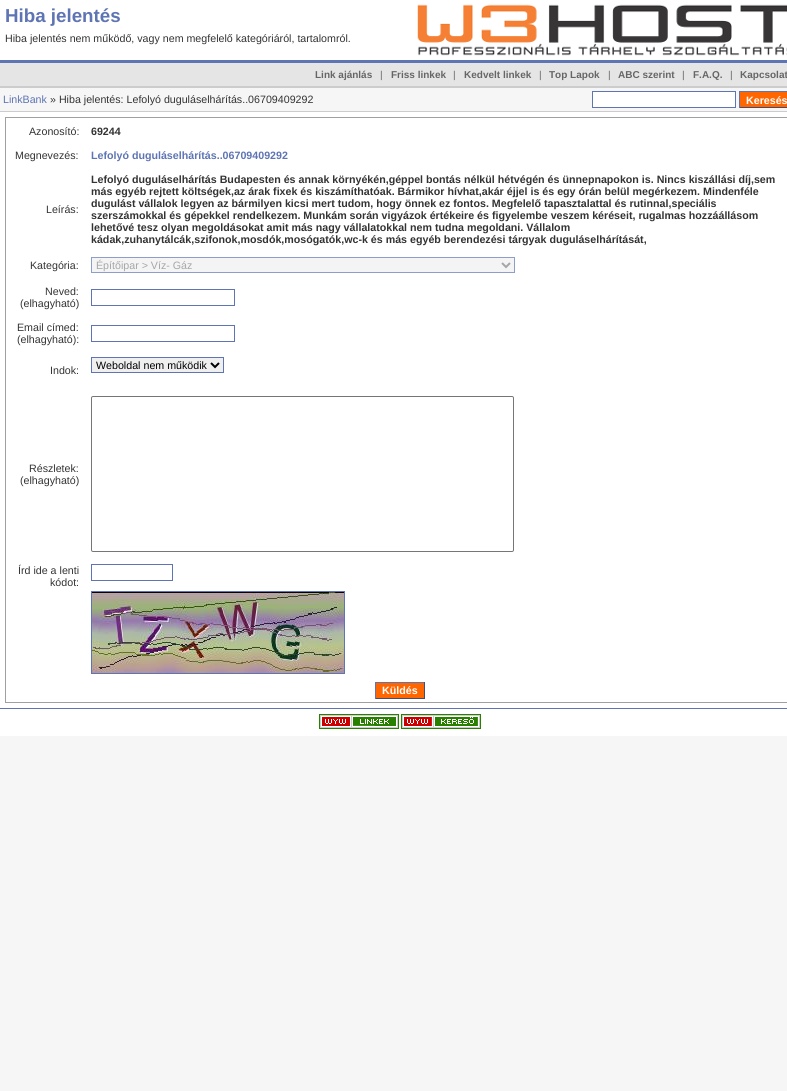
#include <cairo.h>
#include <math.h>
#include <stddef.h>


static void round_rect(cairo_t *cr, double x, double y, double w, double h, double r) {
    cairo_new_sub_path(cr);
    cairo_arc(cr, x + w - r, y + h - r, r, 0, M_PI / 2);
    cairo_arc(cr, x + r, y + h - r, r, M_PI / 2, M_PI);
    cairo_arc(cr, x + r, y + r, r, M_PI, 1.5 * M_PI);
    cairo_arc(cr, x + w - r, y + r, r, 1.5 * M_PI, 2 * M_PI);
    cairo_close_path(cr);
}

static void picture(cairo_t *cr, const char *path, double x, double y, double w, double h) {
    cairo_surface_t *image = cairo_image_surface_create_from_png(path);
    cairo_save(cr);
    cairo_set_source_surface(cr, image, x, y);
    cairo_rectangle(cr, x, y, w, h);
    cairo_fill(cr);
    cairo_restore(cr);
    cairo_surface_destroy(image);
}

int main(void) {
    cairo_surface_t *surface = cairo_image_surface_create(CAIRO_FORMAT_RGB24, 787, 1091);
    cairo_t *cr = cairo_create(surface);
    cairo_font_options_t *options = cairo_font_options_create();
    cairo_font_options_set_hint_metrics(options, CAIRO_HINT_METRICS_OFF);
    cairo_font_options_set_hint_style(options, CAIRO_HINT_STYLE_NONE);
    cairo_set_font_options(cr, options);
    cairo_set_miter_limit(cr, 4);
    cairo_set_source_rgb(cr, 0.961, 0.961, 0.961);
    cairo_paint(cr);
    cairo_set_source_rgb(cr, 1, 1, 1);
    cairo_rectangle(cr, 0, 0, 787, 736);
    cairo_fill(cr);
    cairo_select_font_face(cr, "Liberation Sans", CAIRO_FONT_SLANT_NORMAL, CAIRO_FONT_WEIGHT_BOLD);
    cairo_set_font_size(cr, 18.75);
    cairo_set_source_rgb(cr, 0.369, 0.455, 0.702);
    cairo_move_to(cr, 5, 22);
    cairo_show_text(cr, "Hiba jelentés");
    picture(cr, "img1.png", 417, 0, 370, 60);
    cairo_select_font_face(cr, "Liberation Sans", CAIRO_FONT_SLANT_NORMAL, CAIRO_FONT_WEIGHT_NORMAL);
    cairo_set_font_size(cr, 10.67);
    cairo_set_source_rgb(cr, 0.2, 0.2, 0.2);
    cairo_move_to(cr, 5, 42);
    cairo_show_text(cr, "Hiba jelentés nem működő, vagy nem megfelelő kategóriáról, tartalomról.");
    cairo_set_source_rgb(cr, 0.898, 0.898, 0.898);
    cairo_rectangle(cr, 0, 63, 787, 23);
    cairo_fill(cr);
    cairo_set_source_rgb(cr, 0.369, 0.455, 0.702);
    cairo_rectangle(cr, 0, 60, 787, 3);
    cairo_fill(cr);
    cairo_select_font_face(cr, "Liberation Sans", CAIRO_FONT_SLANT_NORMAL, CAIRO_FONT_WEIGHT_BOLD);
    cairo_set_font_size(cr, 10);
    cairo_set_source_rgb(cr, 0.4, 0.4, 0.4);
    cairo_move_to(cr, 315, 78);
    cairo_show_text(cr, "Link ajánlás");
    cairo_select_font_face(cr, "Liberation Sans", CAIRO_FONT_SLANT_NORMAL, CAIRO_FONT_WEIGHT_NORMAL);
    cairo_move_to(cr, 380, 78);
    cairo_show_text(cr, "|");
    cairo_select_font_face(cr, "Liberation Sans", CAIRO_FONT_SLANT_NORMAL, CAIRO_FONT_WEIGHT_BOLD);
    cairo_move_to(cr, 391, 78);
    cairo_show_text(cr, "Friss linkek");
    cairo_select_font_face(cr, "Liberation Sans", CAIRO_FONT_SLANT_NORMAL, CAIRO_FONT_WEIGHT_NORMAL);
    cairo_move_to(cr, 453, 78);
    cairo_show_text(cr, "|");
    cairo_select_font_face(cr, "Liberation Sans", CAIRO_FONT_SLANT_NORMAL, CAIRO_FONT_WEIGHT_BOLD);
    cairo_move_to(cr, 464, 78);
    cairo_show_text(cr, "Kedvelt linkek");
    cairo_select_font_face(cr, "Liberation Sans", CAIRO_FONT_SLANT_NORMAL, CAIRO_FONT_WEIGHT_NORMAL);
    cairo_move_to(cr, 539, 78);
    cairo_show_text(cr, "|");
    cairo_select_font_face(cr, "Liberation Sans", CAIRO_FONT_SLANT_NORMAL, CAIRO_FONT_WEIGHT_BOLD);
    cairo_move_to(cr, 549, 78);
    cairo_show_text(cr, "Top Lapok");
    cairo_select_font_face(cr, "Liberation Sans", CAIRO_FONT_SLANT_NORMAL, CAIRO_FONT_WEIGHT_NORMAL);
    cairo_move_to(cr, 608, 78);
    cairo_show_text(cr, "|");
    cairo_select_font_face(cr, "Liberation Sans", CAIRO_FONT_SLANT_NORMAL, CAIRO_FONT_WEIGHT_BOLD);
    cairo_move_to(cr, 618, 78);
    cairo_show_text(cr, "ABC szerint");
    cairo_select_font_face(cr, "Liberation Sans", CAIRO_FONT_SLANT_NORMAL, CAIRO_FONT_WEIGHT_NORMAL);
    cairo_move_to(cr, 682, 78);
    cairo_show_text(cr, "|");
    cairo_select_font_face(cr, "Liberation Sans", CAIRO_FONT_SLANT_NORMAL, CAIRO_FONT_WEIGHT_BOLD);
    cairo_move_to(cr, 693, 78);
    cairo_show_text(cr, "F.A.Q.");
    cairo_select_font_face(cr, "Liberation Sans", CAIRO_FONT_SLANT_NORMAL, CAIRO_FONT_WEIGHT_NORMAL);
    cairo_move_to(cr, 730, 78);
    cairo_show_text(cr, "|");
    cairo_select_font_face(cr, "Liberation Sans", CAIRO_FONT_SLANT_NORMAL, CAIRO_FONT_WEIGHT_BOLD);
    cairo_move_to(cr, 740, 78);
    cairo_show_text(cr, "Kapcsolat");
    cairo_set_source_rgb(cr, 0.961, 0.961, 0.961);
    cairo_rectangle(cr, 0, 88, 787, 23);
    cairo_fill(cr);
    cairo_set_source_rgb(cr, 0.8, 0.8, 0.8);
    cairo_rectangle(cr, 0, 86, 787, 2);
    cairo_fill(cr);
    cairo_rectangle(cr, 0, 111, 787, 1);
    cairo_fill(cr);
    cairo_select_font_face(cr, "Liberation Sans", CAIRO_FONT_SLANT_NORMAL, CAIRO_FONT_WEIGHT_NORMAL);
    cairo_set_font_size(cr, 10.67);
    cairo_set_source_rgb(cr, 0.369, 0.455, 0.702);
    cairo_move_to(cr, 3, 103);
    cairo_show_text(cr, "LinkBank");
    cairo_set_source_rgb(cr, 0.2, 0.2, 0.2);
    cairo_move_to(cr, 50, 103);
    cairo_show_text(cr, "» Hiba jelentés: Lefolyó duguláselhárítás..06709409292");
    cairo_set_source_rgb(cr, 1, 1, 1);
    cairo_rectangle(cr, 592.5, 91.5, 143, 16);
    cairo_fill_preserve(cr);
    cairo_set_source_rgb(cr, 0.369, 0.455, 0.702);
    cairo_set_line_width(cr, 1);
    cairo_stroke(cr);
    cairo_set_source_rgb(cr, 1, 0.4, 0);
    cairo_rectangle(cr, 740, 92, 47, 15);
    cairo_fill(cr);
    cairo_set_source_rgb(cr, 0.369, 0.455, 0.702);
    cairo_rectangle(cr, 739, 91, 48, 1);
    cairo_fill(cr);
    cairo_set_source_rgb(cr, 0.247, 0.302, 0.467);
    cairo_rectangle(cr, 739, 107, 48, 1);
    cairo_fill(cr);
    cairo_set_source_rgb(cr, 0.369, 0.455, 0.702);
    cairo_rectangle(cr, 739, 91, 1, 17);
    cairo_fill(cr);
    cairo_select_font_face(cr, "Liberation Sans", CAIRO_FONT_SLANT_NORMAL, CAIRO_FONT_WEIGHT_BOLD);
    cairo_set_source_rgb(cr, 1, 1, 1);
    cairo_move_to(cr, 746, 104);
    cairo_show_text(cr, "Keresés");
    cairo_rectangle(cr, 5.5, 117.5, 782, 585);
    cairo_set_source_rgb(cr, 0.627, 0.627, 0.627);
    cairo_stroke(cr);
    cairo_select_font_face(cr, "Liberation Sans", CAIRO_FONT_SLANT_NORMAL, CAIRO_FONT_WEIGHT_NORMAL);
    cairo_set_source_rgb(cr, 0.2, 0.2, 0.2);
    cairo_move_to(cr, 29, 135);
    cairo_show_text(cr, "Azonosító:");
    cairo_select_font_face(cr, "Liberation Sans", CAIRO_FONT_SLANT_NORMAL, CAIRO_FONT_WEIGHT_BOLD);
    cairo_move_to(cr, 91, 135);
    cairo_show_text(cr, "69244");
    cairo_select_font_face(cr, "Liberation Sans", CAIRO_FONT_SLANT_NORMAL, CAIRO_FONT_WEIGHT_NORMAL);
    cairo_move_to(cr, 15, 159);
    cairo_show_text(cr, "Megnevezés:");
    cairo_select_font_face(cr, "Liberation Sans", CAIRO_FONT_SLANT_NORMAL, CAIRO_FONT_WEIGHT_BOLD);
    cairo_set_source_rgb(cr, 0.369, 0.455, 0.702);
    cairo_move_to(cr, 91, 159);
    cairo_show_text(cr, "Lefolyó duguláselhárítás..06709409292");
    cairo_select_font_face(cr, "Liberation Sans", CAIRO_FONT_SLANT_NORMAL, CAIRO_FONT_WEIGHT_NORMAL);
    cairo_set_source_rgb(cr, 0.2, 0.2, 0.2);
    cairo_move_to(cr, 46, 213);
    cairo_show_text(cr, "Leírás:");
    cairo_select_font_face(cr, "Liberation Sans", CAIRO_FONT_SLANT_NORMAL, CAIRO_FONT_WEIGHT_BOLD);
    cairo_move_to(cr, 91, 183);
    cairo_show_text(cr, "Lefolyó duguláselhárítás Budapesten és annak környékén,géppel bontás nélkül hétvégén és ünnepnapokon is. Nincs kiszállási díj,sem");
    cairo_move_to(cr, 91, 195);
    cairo_show_text(cr, "más egyéb rejtett költségek,az árak fixek és kiszámíthatóak. Bármikor hívhat,akár éjjel is és egy órán belül megérkezem. Mindenféle");
    cairo_move_to(cr, 91, 207);
    cairo_show_text(cr, "dugulást vállalok legyen az bármilyen kicsi mert tudom, hogy önnek ez fontos. Megfelelő tapasztalattal és rutinnal,speciális");
    cairo_move_to(cr, 91, 219);
    cairo_show_text(cr, "szerszámokkal és gépekkel rendelkezem. Munkám során vigyázok értékeire és figyelembe veszem kéréseit, rugalmas hozzáállásom");
    cairo_move_to(cr, 91, 231);
    cairo_show_text(cr, "lehetővé tesz olyan megoldásokat amit más nagy vállalatokkal nem tudna megoldani. Vállalom");
    cairo_move_to(cr, 91, 243);
    cairo_show_text(cr, "kádak,zuhanytálcák,szifonok,mosdók,mosógatók,wc-k és más egyéb berendezési tárgyak duguláselhárítását,");
    cairo_select_font_face(cr, "Liberation Sans", CAIRO_FONT_SLANT_NORMAL, CAIRO_FONT_WEIGHT_NORMAL);
    cairo_move_to(cr, 30, 269);
    cairo_show_text(cr, "Kategória:");
    cairo_set_source_rgb(cr, 0.957, 0.957, 0.957);
    cairo_rectangle(cr, 91.5, 257.5, 423, 15);
    cairo_fill_preserve(cr);
    cairo_set_source_rgb(cr, 0.557, 0.62, 0.792);
    cairo_stroke(cr);
    cairo_new_path(cr);
    cairo_move_to(cr, 502, 263);
    cairo_line_to(cr, 506, 267);
    cairo_line_to(cr, 510, 263);
    cairo_set_source_rgb(cr, 0.651, 0.651, 0.651);
    cairo_set_line_width(cr, 2);
    cairo_stroke(cr);
    cairo_move_to(cr, 96, 269);
    cairo_show_text(cr, "Építőipar > Víz- Gáz");
    cairo_set_source_rgb(cr, 0.2, 0.2, 0.2);
    cairo_move_to(cr, 45, 295);
    cairo_show_text(cr, "Neved:");
    cairo_move_to(cr, 20, 307);
    cairo_show_text(cr, "(elhagyható)");
    cairo_rectangle(cr, 91.5, 289.5, 143, 16);
    cairo_set_source_rgb(cr, 0.369, 0.455, 0.702);
    cairo_set_line_width(cr, 1);
    cairo_stroke(cr);
    cairo_set_source_rgb(cr, 0.2, 0.2, 0.2);
    cairo_move_to(cr, 17, 331);
    cairo_show_text(cr, "Email címed:");
    cairo_move_to(cr, 17, 343);
    cairo_show_text(cr, "(elhagyható):");
    cairo_rectangle(cr, 91.5, 325.5, 143, 16);
    cairo_set_source_rgb(cr, 0.369, 0.455, 0.702);
    cairo_stroke(cr);
    cairo_set_source_rgb(cr, 0.2, 0.2, 0.2);
    cairo_move_to(cr, 50, 374);
    cairo_show_text(cr, "Indok:");
    cairo_set_source_rgb(cr, 0.937, 0.937, 0.937);
    cairo_rectangle(cr, 91.5, 357.5, 132, 15);
    cairo_fill_preserve(cr);
    cairo_set_source_rgb(cr, 0.369, 0.455, 0.702);
    cairo_stroke(cr);
    cairo_new_path(cr);
    cairo_move_to(cr, 211, 363);
    cairo_line_to(cr, 215, 367);
    cairo_line_to(cr, 219, 363);
    cairo_set_source_rgb(cr, 0, 0, 0);
    cairo_set_line_width(cr, 2);
    cairo_stroke(cr);
    cairo_move_to(cr, 96, 369);
    cairo_show_text(cr, "Weboldal nem működik");
    cairo_set_source_rgb(cr, 0.2, 0.2, 0.2);
    cairo_move_to(cr, 29, 472);
    cairo_show_text(cr, "Részletek:");
    cairo_move_to(cr, 20, 484);
    cairo_show_text(cr, "(elhagyható)");
    round_rect(cr, 91.5, 396.5, 422, 155, 1.5);
    cairo_set_source_rgb(cr, 0.463, 0.463, 0.463);
    cairo_set_line_width(cr, 1);
    cairo_stroke(cr);
    cairo_set_source_rgb(cr, 0.2, 0.2, 0.2);
    cairo_move_to(cr, 18, 574);
    cairo_show_text(cr, "Írd ide a lenti");
    cairo_move_to(cr, 50, 586);
    cairo_show_text(cr, "kódot:");
    cairo_rectangle(cr, 91.5, 564.5, 81, 16);
    cairo_set_source_rgb(cr, 0.369, 0.455, 0.702);
    cairo_stroke(cr);
    cairo_rectangle(cr, 91.5, 591.5, 253, 82);
    cairo_stroke(cr);
    picture(cr, "img2.png", 92, 592, 252, 81);
    cairo_set_source_rgb(cr, 1, 0.4, 0);
    cairo_rectangle(cr, 376, 683, 48, 15);
    cairo_fill(cr);
    cairo_set_source_rgb(cr, 0.369, 0.455, 0.702);
    cairo_rectangle(cr, 375, 682, 50, 1);
    cairo_fill(cr);
    cairo_set_source_rgb(cr, 0.247, 0.302, 0.467);
    cairo_rectangle(cr, 424, 682, 1, 17);
    cairo_fill(cr);
    cairo_rectangle(cr, 375, 698, 50, 1);
    cairo_fill(cr);
    cairo_set_source_rgb(cr, 0.369, 0.455, 0.702);
    cairo_rectangle(cr, 375, 682, 1, 17);
    cairo_fill(cr);
    cairo_select_font_face(cr, "Liberation Sans", CAIRO_FONT_SLANT_NORMAL, CAIRO_FONT_WEIGHT_BOLD);
    cairo_set_source_rgb(cr, 1, 1, 1);
    cairo_move_to(cr, 382, 694);
    cairo_show_text(cr, "Küldés");
    cairo_set_source_rgb(cr, 0.369, 0.455, 0.702);
    cairo_rectangle(cr, 0, 708, 787, 1);
    cairo_fill(cr);
    picture(cr, "img3.png", 319, 714, 80, 15);
    picture(cr, "img4.png", 401, 714, 80, 15);
    cairo_surface_write_to_png(surface, "page.png");
    cairo_font_options_destroy(options);
    cairo_destroy(cr);
    cairo_surface_destroy(surface);
    return 0;
}
